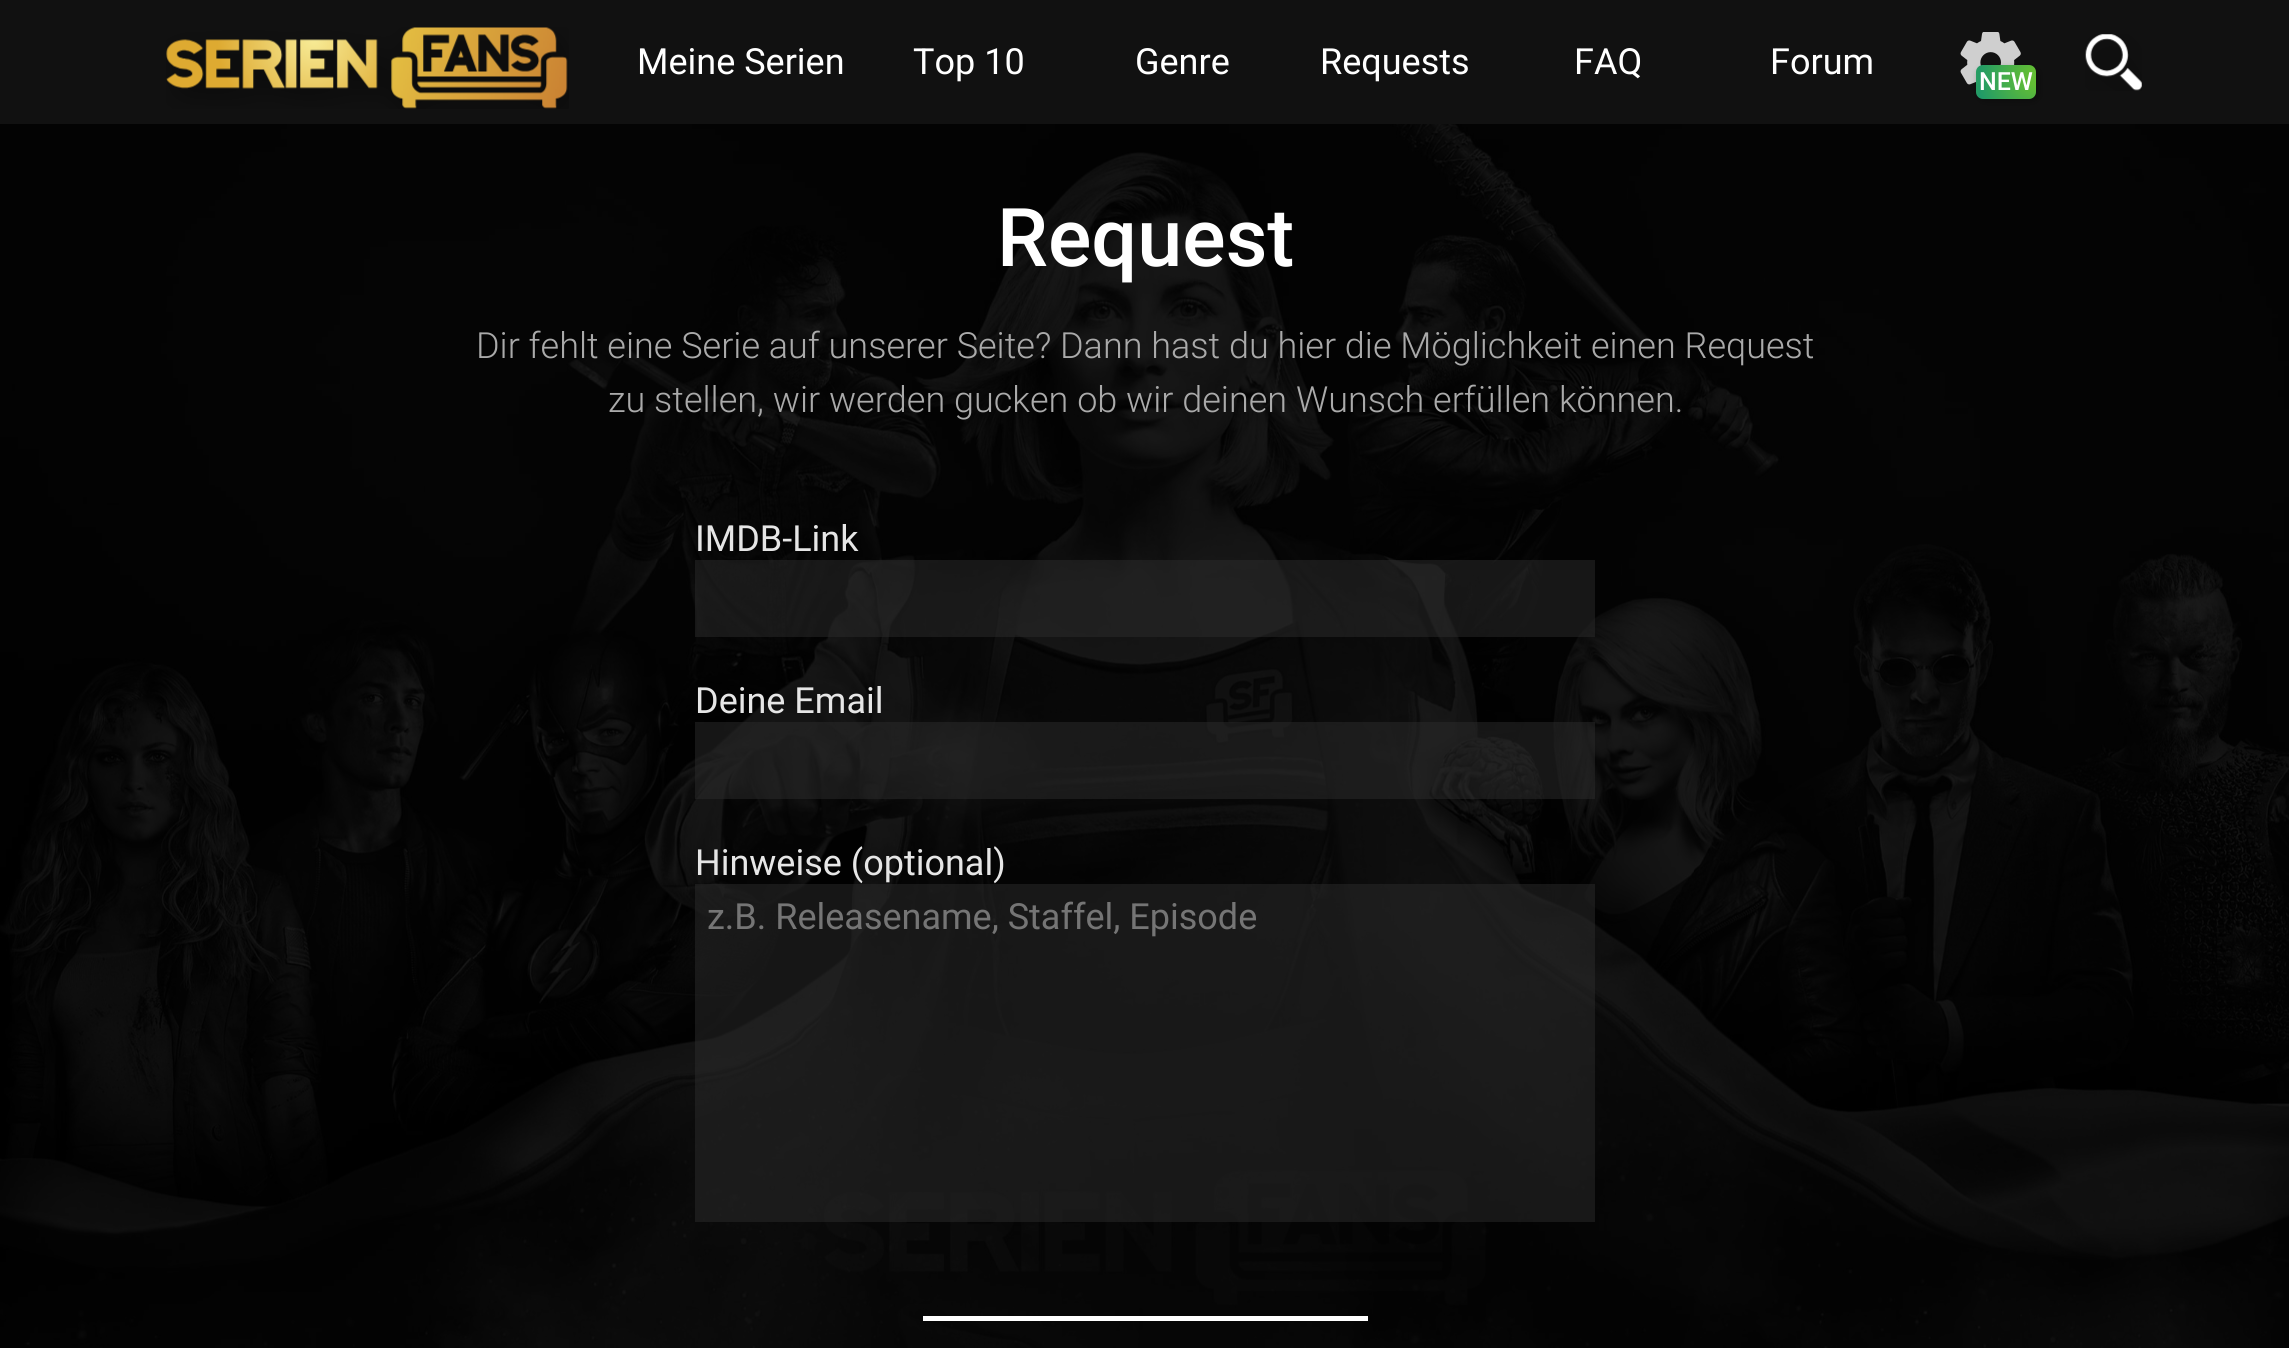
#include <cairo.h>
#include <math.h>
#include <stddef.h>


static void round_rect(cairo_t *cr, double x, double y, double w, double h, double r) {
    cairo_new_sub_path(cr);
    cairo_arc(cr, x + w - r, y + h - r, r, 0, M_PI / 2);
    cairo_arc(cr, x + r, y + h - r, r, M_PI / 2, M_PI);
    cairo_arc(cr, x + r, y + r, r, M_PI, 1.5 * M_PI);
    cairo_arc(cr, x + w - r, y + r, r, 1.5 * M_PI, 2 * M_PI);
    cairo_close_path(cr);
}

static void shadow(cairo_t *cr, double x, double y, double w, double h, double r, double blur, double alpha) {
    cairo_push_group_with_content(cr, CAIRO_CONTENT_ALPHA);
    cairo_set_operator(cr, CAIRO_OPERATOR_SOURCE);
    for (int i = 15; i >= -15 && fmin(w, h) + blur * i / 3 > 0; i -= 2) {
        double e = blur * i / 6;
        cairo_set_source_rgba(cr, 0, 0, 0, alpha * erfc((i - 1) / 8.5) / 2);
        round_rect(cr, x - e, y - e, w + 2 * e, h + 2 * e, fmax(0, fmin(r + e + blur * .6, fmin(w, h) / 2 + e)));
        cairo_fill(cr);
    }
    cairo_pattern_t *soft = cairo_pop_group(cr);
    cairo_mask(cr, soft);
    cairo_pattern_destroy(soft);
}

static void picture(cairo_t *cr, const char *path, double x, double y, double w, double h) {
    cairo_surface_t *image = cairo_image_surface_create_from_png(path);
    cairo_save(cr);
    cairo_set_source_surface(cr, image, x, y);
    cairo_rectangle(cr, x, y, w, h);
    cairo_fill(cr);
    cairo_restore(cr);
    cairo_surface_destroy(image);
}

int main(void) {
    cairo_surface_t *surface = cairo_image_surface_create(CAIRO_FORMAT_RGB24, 2289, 1348);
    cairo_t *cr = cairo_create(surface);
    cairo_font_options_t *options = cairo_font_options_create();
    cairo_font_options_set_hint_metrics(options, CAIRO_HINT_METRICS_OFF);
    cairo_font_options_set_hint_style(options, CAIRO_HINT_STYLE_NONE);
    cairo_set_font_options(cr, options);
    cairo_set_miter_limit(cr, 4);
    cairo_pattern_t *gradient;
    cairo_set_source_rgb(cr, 1, 1, 1);
    cairo_paint(cr);
    cairo_set_source_rgb(cr, 0.067, 0.067, 0.067);
    cairo_rectangle(cr, 0, 0, 2289, 124);
    cairo_fill(cr);
    picture(cr, "img1.png", 166, 27, 403, 82);
    cairo_select_font_face(cr, "Roboto", CAIRO_FONT_SLANT_NORMAL, CAIRO_FONT_WEIGHT_NORMAL);
    cairo_set_font_size(cr, 36);
    cairo_set_source_rgb(cr, 1, 1, 1);
    cairo_move_to(cr, 637, 74);
    cairo_show_text(cr, "Meine Serien");
    cairo_move_to(cr, 913, 74);
    cairo_show_text(cr, "Top 10");
    cairo_move_to(cr, 1135, 74);
    cairo_show_text(cr, "Genre");
    cairo_move_to(cr, 1320, 74);
    cairo_show_text(cr, "Requests");
    cairo_move_to(cr, 1574, 74);
    cairo_show_text(cr, "FAQ");
    cairo_move_to(cr, 1770, 74);
    cairo_show_text(cr, "Forum");
    picture(cr, "img2.png", 2085, 34, 57, 57);
    picture(cr, "img3.png", 1960, 32, 61, 53);
    cairo_set_source_rgb(cr, 0, 0, 0);
    shadow(cr, 1978, 68, 61, 33, 7, 3.5, 0.3);
    cairo_save(cr);
    round_rect(cr, 1976, 65, 60, 34, 7);
    cairo_clip(cr);
    gradient = cairo_pattern_create_radial(1924, 77, 0, 1924, 77, 80);
    cairo_pattern_add_color_stop_rgba(gradient, 0.1, 0.384, 0.741, 0.204, 1);
    cairo_pattern_add_color_stop_rgba(gradient, 0.8, 0.098, 0.588, 0.431, 1);
    cairo_set_source(cr, gradient);
    cairo_pattern_destroy(gradient);
    cairo_rectangle(cr, 1976, 65, 4, 34);
    cairo_fill(cr);
    gradient = cairo_pattern_create_radial(2036, 77, 0, 2036, 77, 80);
    cairo_pattern_add_color_stop_rgba(gradient, 0.1, 0.384, 0.741, 0.204, 1);
    cairo_pattern_add_color_stop_rgba(gradient, 0.8, 0.098, 0.588, 0.431, 1);
    cairo_set_source(cr, gradient);
    cairo_pattern_destroy(gradient);
    cairo_new_path(cr);
    cairo_move_to(cr, 1980, 65);
    cairo_line_to(cr, 2029, 65);
    cairo_curve_to(cr, 2033, 65, 2036, 68, 2036, 72);
    cairo_line_to(cr, 2036, 92);
    cairo_curve_to(cr, 2036, 96, 2033, 99, 2029, 99);
    cairo_line_to(cr, 1980, 99);
    cairo_close_path(cr);
    cairo_fill(cr);
    cairo_restore(cr);
    cairo_select_font_face(cr, "Roboto Medium", CAIRO_FONT_SLANT_NORMAL, CAIRO_FONT_WEIGHT_NORMAL);
    cairo_set_font_size(cr, 25);
    cairo_set_source_rgb(cr, 1, 1, 1);
    cairo_move_to(cr, 1979, 90);
    cairo_show_text(cr, "NEW");
    picture(cr, "img4.png", 0, 124, 2289, 1224);
    cairo_set_font_size(cr, 81);
    cairo_move_to(cr, 997, 266);
    cairo_show_text(cr, "Request");
    cairo_select_font_face(cr, "Roboto Light", CAIRO_FONT_SLANT_NORMAL, CAIRO_FONT_WEIGHT_NORMAL);
    cairo_set_font_size(cr, 36);
    cairo_set_source_rgb(cr, 0.667, 0.667, 0.667);
    cairo_move_to(cr, 476, 358);
    cairo_show_text(cr, "Dir fehlt eine Serie auf unserer Seite? Dann hast du hier die Möglichkeit einen Request");
    cairo_move_to(cr, 608, 412);
    cairo_show_text(cr, "zu stellen, wir werden gucken ob wir deinen Wunsch erfüllen können.");
    cairo_select_font_face(cr, "Roboto", CAIRO_FONT_SLANT_NORMAL, CAIRO_FONT_WEIGHT_NORMAL);
    cairo_set_source_rgb(cr, 0.902, 0.902, 0.902);
    cairo_move_to(cr, 695, 551);
    cairo_show_text(cr, "IMDB-Link");
    cairo_set_source_rgba(cr, 0.173, 0.173, 0.173, 0.5);
    cairo_rectangle(cr, 695, 560, 900, 77);
    cairo_fill(cr);
    cairo_set_source_rgb(cr, 0.902, 0.902, 0.902);
    cairo_move_to(cr, 695, 713);
    cairo_show_text(cr, "Deine Email");
    cairo_set_source_rgba(cr, 0.173, 0.173, 0.173, 0.5);
    cairo_rectangle(cr, 695, 722, 900, 77);
    cairo_fill(cr);
    cairo_set_source_rgb(cr, 0.902, 0.902, 0.902);
    cairo_move_to(cr, 695, 875);
    cairo_show_text(cr, "Hinweise (optional)");
    cairo_set_source_rgba(cr, 0.173, 0.173, 0.173, 0.5);
    cairo_rectangle(cr, 695, 884, 900, 338);
    cairo_fill(cr);
    cairo_set_source_rgb(cr, 0.459, 0.459, 0.459);
    cairo_move_to(cr, 707, 929);
    cairo_show_text(cr, "z.B. Releasename, Staffel, Episode");
    cairo_set_source_rgb(cr, 1, 1, 1);
    cairo_rectangle(cr, 923, 1316, 445, 5);
    cairo_fill(cr);
    cairo_surface_write_to_png(surface, "page.png");
    cairo_font_options_destroy(options);
    cairo_destroy(cr);
    cairo_surface_destroy(surface);
    return 0;
}
